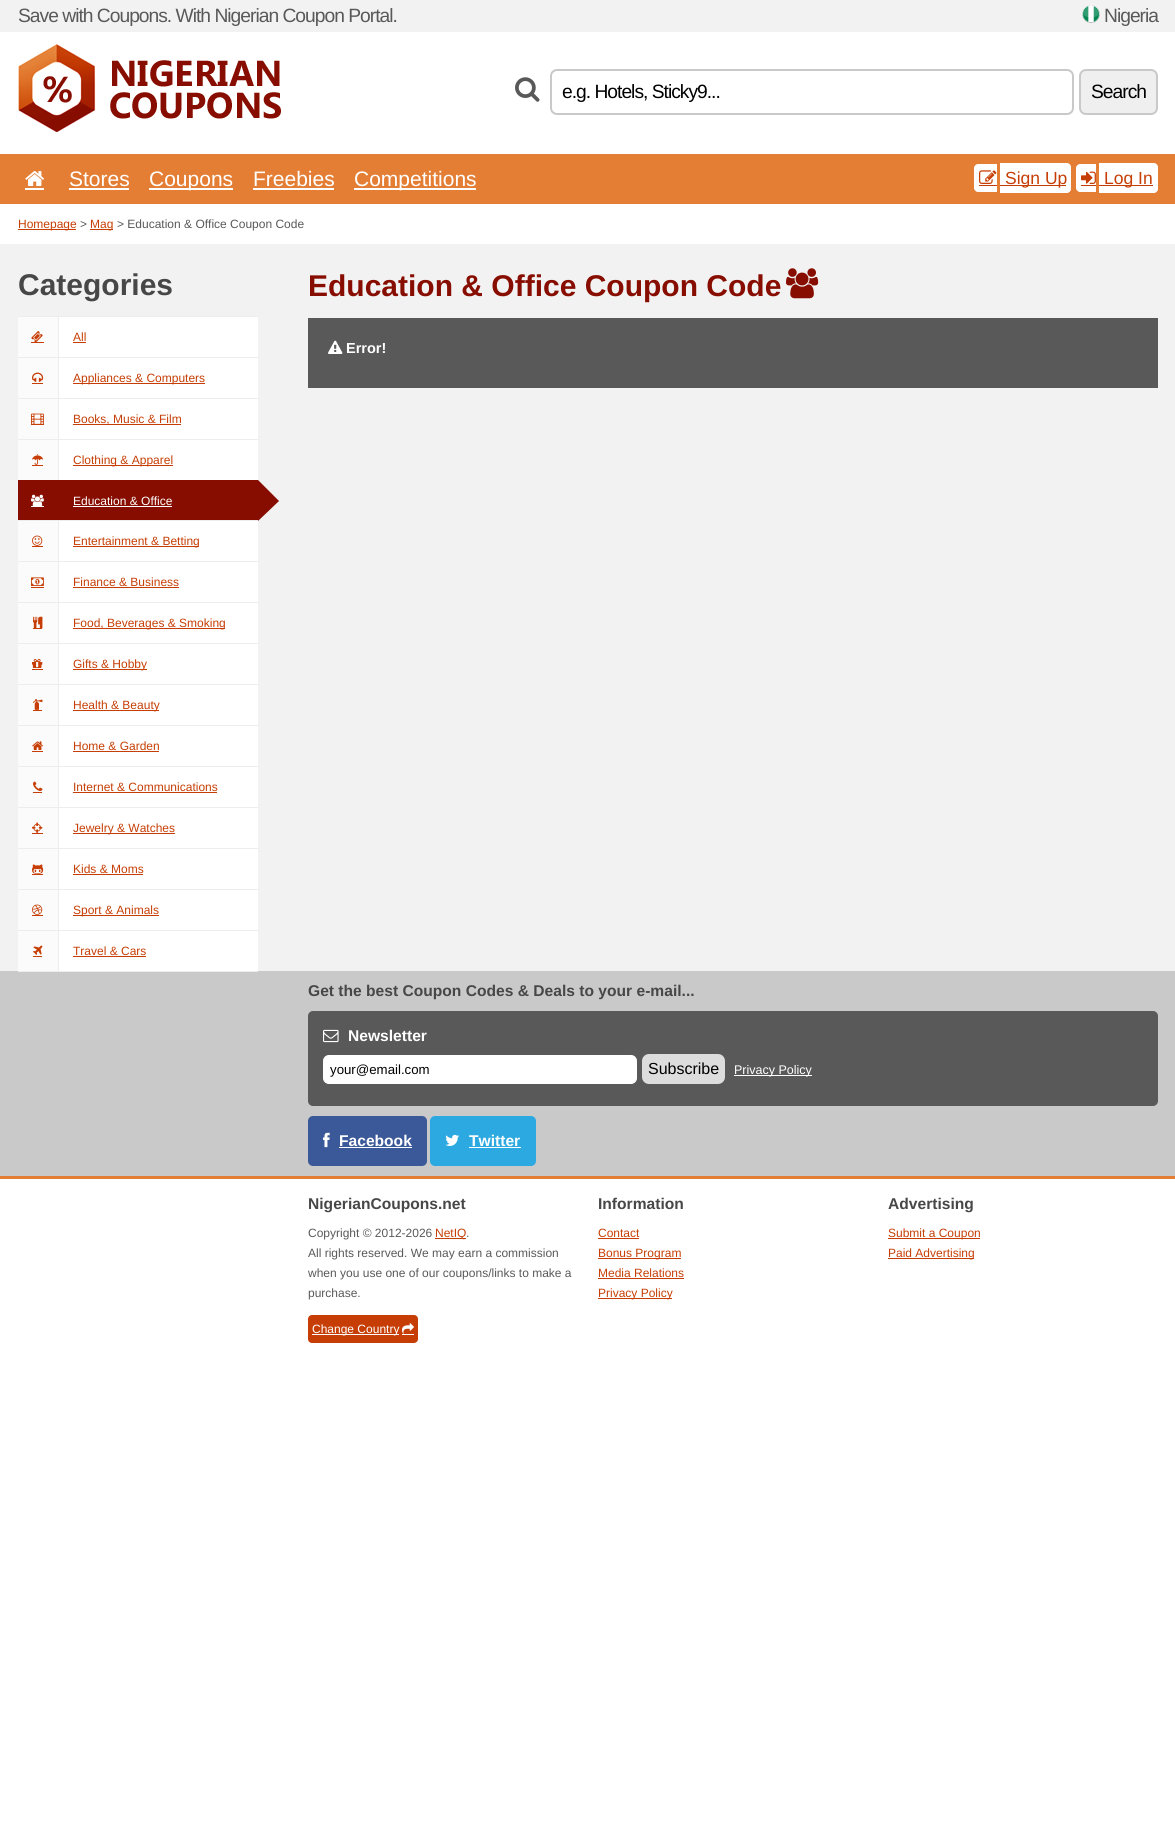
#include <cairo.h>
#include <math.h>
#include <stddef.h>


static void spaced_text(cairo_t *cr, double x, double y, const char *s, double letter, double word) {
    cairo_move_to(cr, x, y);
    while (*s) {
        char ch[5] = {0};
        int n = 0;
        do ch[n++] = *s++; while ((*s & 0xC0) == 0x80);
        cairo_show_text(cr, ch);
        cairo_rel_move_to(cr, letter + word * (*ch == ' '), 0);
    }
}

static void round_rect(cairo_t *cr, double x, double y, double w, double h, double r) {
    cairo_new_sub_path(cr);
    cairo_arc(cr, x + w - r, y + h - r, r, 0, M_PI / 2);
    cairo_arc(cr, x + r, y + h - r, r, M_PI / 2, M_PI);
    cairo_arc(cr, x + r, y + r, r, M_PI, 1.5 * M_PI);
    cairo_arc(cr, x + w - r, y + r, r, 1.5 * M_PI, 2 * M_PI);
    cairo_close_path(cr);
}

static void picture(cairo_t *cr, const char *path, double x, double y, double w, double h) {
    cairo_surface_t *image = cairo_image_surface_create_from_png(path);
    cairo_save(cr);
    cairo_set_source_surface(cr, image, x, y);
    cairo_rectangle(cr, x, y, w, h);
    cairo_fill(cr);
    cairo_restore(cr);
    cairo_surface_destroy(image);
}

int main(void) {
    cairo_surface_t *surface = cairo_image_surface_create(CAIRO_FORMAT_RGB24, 1175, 1831);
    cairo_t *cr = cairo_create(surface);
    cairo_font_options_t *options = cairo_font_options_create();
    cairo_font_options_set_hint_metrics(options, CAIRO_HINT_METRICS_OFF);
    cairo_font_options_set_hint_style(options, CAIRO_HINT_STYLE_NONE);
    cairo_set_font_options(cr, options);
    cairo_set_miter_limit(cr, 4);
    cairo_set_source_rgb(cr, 1, 1, 1);
    cairo_paint(cr);
    cairo_set_source_rgb(cr, 0.949, 0.949, 0.949);
    cairo_rectangle(cr, 0, 0, 1175, 32);
    cairo_fill(cr);
    cairo_select_font_face(cr, "Liberation Sans", CAIRO_FONT_SLANT_NORMAL, CAIRO_FONT_WEIGHT_NORMAL);
    cairo_set_font_size(cr, 19.25);
    cairo_set_source_rgb(cr, 0.349, 0.349, 0.349);
    spaced_text(cr, 18, 22, "Save with Coupons. With Nigerian Coupon Portal.", -1, 0);
    picture(cr, "img1.png", 1082, 5, 18, 18);
    spaced_text(cr, 1104, 22, "Nigeria", -1, 0);
    cairo_set_source_rgb(cr, 0.949, 0.949, 0.949);
    cairo_rectangle(cr, 0, 244, 1175, 727);
    cairo_fill(cr);
    picture(cr, "img2.png", 18, 44, 263, 88);
    picture(cr, "img3.png", 515, 77, 25, 25);
    round_rect(cr, 551, 70, 522, 44, 6);
    cairo_set_source_rgb(cr, 0.788, 0.788, 0.788);
    cairo_stroke(cr);
    cairo_set_source_rgb(cr, 0, 0, 0);
    spaced_text(cr, 562, 98, "e.g. Hotels, Sticky9...", -1, 0);
    cairo_set_source_rgb(cr, 0.937, 0.937, 0.937);
    round_rect(cr, 1080, 70, 77, 44, 6);
    cairo_fill_preserve(cr);
    cairo_set_source_rgb(cr, 0.788, 0.788, 0.788);
    cairo_stroke(cr);
    cairo_set_source_rgb(cr, 0, 0, 0);
    spaced_text(cr, 1091, 98, "Search", -1, 0);
    cairo_set_source_rgb(cr, 0.894, 0.494, 0.204);
    cairo_rectangle(cr, 0, 154, 1175, 50);
    cairo_fill(cr);
    picture(cr, "img4.png", 25, 171, 19, 15);
    cairo_set_source_rgb(cr, 1, 1, 1);
    cairo_rectangle(cr, 25, 188, 19, 2);
    cairo_fill(cr);
    cairo_set_font_size(cr, 21);
    cairo_move_to(cr, 69, 186);
    cairo_show_text(cr, "Stores");
    cairo_rectangle(cr, 69, 188, 60, 2);
    cairo_fill(cr);
    cairo_rectangle(cr, 149, 188, 84, 2);
    cairo_fill(cr);
    cairo_move_to(cr, 149, 186);
    cairo_show_text(cr, "Coupons");
    cairo_move_to(cr, 253, 186);
    cairo_show_text(cr, "Freebies");
    cairo_rectangle(cr, 253, 188, 81, 2);
    cairo_fill(cr);
    cairo_rectangle(cr, 354, 188, 122, 2);
    cairo_fill(cr);
    cairo_move_to(cr, 354, 186);
    cairo_show_text(cr, "Competitions");
    cairo_new_path(cr);
    cairo_move_to(cr, 978, 164);
    cairo_line_to(cr, 997, 164);
    cairo_line_to(cr, 997, 192);
    cairo_line_to(cr, 978, 192);
    cairo_curve_to(cr, 976, 192, 974, 190, 974, 188);
    cairo_line_to(cr, 974, 168);
    cairo_curve_to(cr, 974, 166, 976, 164, 978, 164);
    cairo_close_path(cr);
    cairo_fill(cr);
    picture(cr, "img5.png", 979, 170, 18, 14);
    cairo_new_path(cr);
    cairo_move_to(cr, 1000, 163);
    cairo_line_to(cr, 1067, 163);
    cairo_curve_to(cr, 1069, 163, 1071, 165, 1071, 167);
    cairo_line_to(cr, 1071, 189);
    cairo_curve_to(cr, 1071, 191, 1069, 193, 1067, 193);
    cairo_line_to(cr, 1000, 193);
    cairo_close_path(cr);
    cairo_fill(cr);
    cairo_set_source_rgb(cr, 0.776, 0.243, 0.02);
    cairo_rectangle(cr, 1000, 185, 66, 1);
    cairo_fill(cr);
    cairo_set_font_size(cr, 17.5);
    cairo_move_to(cr, 1005, 184);
    cairo_show_text(cr, "Sign Up");
    cairo_rectangle(cr, 979, 185, 18, 1);
    cairo_fill(cr);
    cairo_set_source_rgb(cr, 1, 1, 1);
    cairo_new_path(cr);
    cairo_move_to(cr, 1080, 164);
    cairo_line_to(cr, 1096, 164);
    cairo_line_to(cr, 1096, 192);
    cairo_line_to(cr, 1080, 192);
    cairo_curve_to(cr, 1078, 192, 1076, 190, 1076, 188);
    cairo_line_to(cr, 1076, 168);
    cairo_curve_to(cr, 1076, 166, 1078, 164, 1080, 164);
    cairo_close_path(cr);
    cairo_fill(cr);
    picture(cr, "img6.png", 1081, 171, 15, 13);
    cairo_new_path(cr);
    cairo_move_to(cr, 1099, 163);
    cairo_line_to(cr, 1154, 163);
    cairo_curve_to(cr, 1156, 163, 1158, 165, 1158, 167);
    cairo_line_to(cr, 1158, 189);
    cairo_curve_to(cr, 1158, 191, 1156, 193, 1154, 193);
    cairo_line_to(cr, 1099, 193);
    cairo_close_path(cr);
    cairo_fill(cr);
    cairo_set_source_rgb(cr, 0.776, 0.243, 0.02);
    cairo_rectangle(cr, 1099, 185, 54, 1);
    cairo_fill(cr);
    cairo_move_to(cr, 1104, 184);
    cairo_show_text(cr, "Log In");
    cairo_rectangle(cr, 1081, 185, 15, 1);
    cairo_fill(cr);
    cairo_rectangle(cr, 18, 229, 58, 1);
    cairo_fill(cr);
    cairo_set_font_size(cr, 12);
    cairo_move_to(cr, 18, 228);
    cairo_show_text(cr, "Homepage");
    cairo_set_source_rgb(cr, 0.349, 0.349, 0.349);
    cairo_move_to(cr, 80, 228);
    cairo_show_text(cr, ">");
    cairo_set_source_rgb(cr, 0.776, 0.243, 0.02);
    cairo_rectangle(cr, 90, 229, 23, 1);
    cairo_fill(cr);
    cairo_move_to(cr, 90, 228);
    cairo_show_text(cr, "Mag");
    cairo_set_source_rgb(cr, 0.349, 0.349, 0.349);
    cairo_move_to(cr, 117, 228);
    cairo_show_text(cr, "> Education & Office Coupon Code");
    cairo_select_font_face(cr, "Liberation Sans", CAIRO_FONT_SLANT_NORMAL, CAIRO_FONT_WEIGHT_BOLD);
    cairo_set_font_size(cr, 30);
    cairo_set_source_rgb(cr, 0.278, 0.278, 0.278);
    cairo_move_to(cr, 18, 295);
    cairo_show_text(cr, "Categories");
    cairo_set_source_rgb(cr, 1, 1, 1);
    cairo_rectangle(cr, 59, 317, 199, 40);
    cairo_fill(cr);
    cairo_set_source_rgb(cr, 0.929, 0.929, 0.929);
    cairo_rectangle(cr, 18, 316, 240, 1);
    cairo_fill(cr);
    cairo_set_source_rgb(cr, 0.984, 0.984, 0.984);
    cairo_rectangle(cr, 18, 317, 40, 40);
    cairo_fill(cr);
    cairo_set_source_rgb(cr, 0.929, 0.929, 0.929);
    cairo_rectangle(cr, 58, 317, 1, 40);
    cairo_fill(cr);
    picture(cr, "img7.png", 31, 331, 12, 11);
    cairo_set_source_rgb(cr, 0.776, 0.243, 0.02);
    cairo_rectangle(cr, 31, 342, 13, 1);
    cairo_fill(cr);
    cairo_select_font_face(cr, "Liberation Sans", CAIRO_FONT_SLANT_NORMAL, CAIRO_FONT_WEIGHT_NORMAL);
    cairo_set_font_size(cr, 12);
    cairo_move_to(cr, 73, 341);
    cairo_show_text(cr, "All");
    cairo_rectangle(cr, 73, 342, 13, 1);
    cairo_fill(cr);
    cairo_set_source_rgb(cr, 1, 1, 1);
    cairo_rectangle(cr, 59, 358, 199, 40);
    cairo_fill(cr);
    cairo_set_source_rgb(cr, 0.929, 0.929, 0.929);
    cairo_rectangle(cr, 18, 357, 240, 1);
    cairo_fill(cr);
    cairo_set_source_rgb(cr, 0.984, 0.984, 0.984);
    cairo_rectangle(cr, 18, 358, 40, 40);
    cairo_fill(cr);
    cairo_set_source_rgb(cr, 0.929, 0.929, 0.929);
    cairo_rectangle(cr, 58, 358, 1, 40);
    cairo_fill(cr);
    picture(cr, "img8.png", 32, 372, 12, 10);
    cairo_set_source_rgb(cr, 0.776, 0.243, 0.02);
    cairo_rectangle(cr, 32, 383, 11, 1);
    cairo_fill(cr);
    cairo_rectangle(cr, 73, 383, 132, 1);
    cairo_fill(cr);
    cairo_move_to(cr, 73, 382);
    cairo_show_text(cr, "Appliances & Computers");
    cairo_set_source_rgb(cr, 1, 1, 1);
    cairo_rectangle(cr, 59, 399, 199, 40);
    cairo_fill(cr);
    cairo_set_source_rgb(cr, 0.929, 0.929, 0.929);
    cairo_rectangle(cr, 18, 398, 240, 1);
    cairo_fill(cr);
    cairo_set_source_rgb(cr, 0.984, 0.984, 0.984);
    cairo_rectangle(cr, 18, 399, 40, 40);
    cairo_fill(cr);
    cairo_set_source_rgb(cr, 0.929, 0.929, 0.929);
    cairo_rectangle(cr, 58, 399, 1, 40);
    cairo_fill(cr);
    picture(cr, "img9.png", 31, 413, 13, 11);
    cairo_set_source_rgb(cr, 0.776, 0.243, 0.02);
    cairo_rectangle(cr, 31, 424, 13, 1);
    cairo_fill(cr);
    cairo_rectangle(cr, 73, 424, 108, 1);
    cairo_fill(cr);
    cairo_move_to(cr, 73, 423);
    cairo_show_text(cr, "Books, Music & Film");
    cairo_set_source_rgb(cr, 1, 1, 1);
    cairo_rectangle(cr, 59, 440, 199, 40);
    cairo_fill(cr);
    cairo_set_source_rgb(cr, 0.929, 0.929, 0.929);
    cairo_rectangle(cr, 18, 439, 240, 1);
    cairo_fill(cr);
    cairo_set_source_rgb(cr, 0.984, 0.984, 0.984);
    cairo_rectangle(cr, 18, 440, 40, 40);
    cairo_fill(cr);
    cairo_set_source_rgb(cr, 0.929, 0.929, 0.929);
    cairo_rectangle(cr, 58, 440, 1, 40);
    cairo_fill(cr);
    picture(cr, "img10.png", 32, 454, 12, 11);
    cairo_set_source_rgb(cr, 0.776, 0.243, 0.02);
    cairo_rectangle(cr, 32, 465, 11, 1);
    cairo_fill(cr);
    cairo_rectangle(cr, 73, 465, 100, 1);
    cairo_fill(cr);
    cairo_move_to(cr, 73, 464);
    cairo_show_text(cr, "Clothing & Apparel");
    cairo_set_source_rgb(cr, 0.529, 0.051, 0);
    cairo_rectangle(cr, 18, 480, 240, 40);
    cairo_fill(cr);
    picture(cr, "img11.png", 31, 494, 13, 12);
    cairo_set_source_rgb(cr, 1, 1, 1);
    cairo_rectangle(cr, 31, 506, 13, 1);
    cairo_fill(cr);
    cairo_move_to(cr, 73, 505);
    cairo_show_text(cr, "Education & Office");
    cairo_rectangle(cr, 73, 506, 99, 1);
    cairo_fill(cr);
    cairo_set_source_rgb(cr, 0.529, 0.051, 0);
    cairo_new_path(cr);
    cairo_move_to(cr, 258, 480);
    cairo_line_to(cr, 279, 501);
    cairo_line_to(cr, 258, 521);
    cairo_line_to(cr, 237, 500);
    cairo_close_path(cr);
    cairo_fill(cr);
    cairo_set_source_rgb(cr, 1, 1, 1);
    cairo_rectangle(cr, 59, 521, 199, 40);
    cairo_fill(cr);
    cairo_set_source_rgb(cr, 0.929, 0.929, 0.929);
    cairo_rectangle(cr, 18, 520, 240, 1);
    cairo_fill(cr);
    cairo_set_source_rgb(cr, 0.984, 0.984, 0.984);
    cairo_rectangle(cr, 18, 521, 40, 40);
    cairo_fill(cr);
    cairo_set_source_rgb(cr, 0.929, 0.929, 0.929);
    cairo_rectangle(cr, 58, 521, 1, 40);
    cairo_fill(cr);
    picture(cr, "img12.png", 32, 535, 11, 11);
    cairo_set_source_rgb(cr, 0.776, 0.243, 0.02);
    cairo_rectangle(cr, 32, 546, 11, 1);
    cairo_fill(cr);
    cairo_rectangle(cr, 73, 546, 126, 1);
    cairo_fill(cr);
    cairo_move_to(cr, 73, 545);
    cairo_show_text(cr, "Entertainment & Betting");
    cairo_set_source_rgb(cr, 1, 1, 1);
    cairo_rectangle(cr, 59, 562, 199, 40);
    cairo_fill(cr);
    cairo_set_source_rgb(cr, 0.929, 0.929, 0.929);
    cairo_rectangle(cr, 18, 561, 240, 1);
    cairo_fill(cr);
    cairo_set_source_rgb(cr, 0.984, 0.984, 0.984);
    cairo_rectangle(cr, 18, 562, 40, 40);
    cairo_fill(cr);
    cairo_set_source_rgb(cr, 0.929, 0.929, 0.929);
    cairo_rectangle(cr, 58, 562, 1, 40);
    cairo_fill(cr);
    picture(cr, "img13.png", 31, 577, 13, 9);
    cairo_set_source_rgb(cr, 0.776, 0.243, 0.02);
    cairo_rectangle(cr, 31, 587, 13, 1);
    cairo_fill(cr);
    cairo_move_to(cr, 73, 586);
    cairo_show_text(cr, "Finance & Business");
    cairo_rectangle(cr, 73, 587, 106, 1);
    cairo_fill(cr);
    cairo_set_source_rgb(cr, 1, 1, 1);
    cairo_rectangle(cr, 59, 603, 199, 40);
    cairo_fill(cr);
    cairo_set_source_rgb(cr, 0.929, 0.929, 0.929);
    cairo_rectangle(cr, 18, 602, 240, 1);
    cairo_fill(cr);
    cairo_set_source_rgb(cr, 0.984, 0.984, 0.984);
    cairo_rectangle(cr, 18, 603, 40, 40);
    cairo_fill(cr);
    cairo_set_source_rgb(cr, 0.929, 0.929, 0.929);
    cairo_rectangle(cr, 58, 603, 1, 40);
    cairo_fill(cr);
    cairo_set_source_rgb(cr, 0.776, 0.243, 0.02);
    cairo_rectangle(cr, 33, 628, 9, 1);
    cairo_fill(cr);
    picture(cr, "img14.png", 33, 616, 10, 13);
    cairo_rectangle(cr, 73, 628, 152, 1);
    cairo_fill(cr);
    cairo_move_to(cr, 73, 627);
    cairo_show_text(cr, "Food, Beverages & Smoking");
    cairo_set_source_rgb(cr, 1, 1, 1);
    cairo_rectangle(cr, 59, 644, 199, 40);
    cairo_fill(cr);
    cairo_set_source_rgb(cr, 0.929, 0.929, 0.929);
    cairo_rectangle(cr, 18, 643, 240, 1);
    cairo_fill(cr);
    cairo_set_source_rgb(cr, 0.984, 0.984, 0.984);
    cairo_rectangle(cr, 18, 644, 40, 40);
    cairo_fill(cr);
    cairo_set_source_rgb(cr, 0.929, 0.929, 0.929);
    cairo_rectangle(cr, 58, 644, 1, 40);
    cairo_fill(cr);
    picture(cr, "img15.png", 32, 659, 11, 9);
    cairo_set_source_rgb(cr, 0.776, 0.243, 0.02);
    cairo_rectangle(cr, 32, 669, 11, 1);
    cairo_fill(cr);
    cairo_rectangle(cr, 73, 669, 74, 1);
    cairo_fill(cr);
    cairo_move_to(cr, 73, 668);
    cairo_show_text(cr, "Gifts & Hobby");
    cairo_set_source_rgb(cr, 1, 1, 1);
    cairo_rectangle(cr, 59, 685, 199, 40);
    cairo_fill(cr);
    cairo_set_source_rgb(cr, 0.929, 0.929, 0.929);
    cairo_rectangle(cr, 18, 684, 240, 1);
    cairo_fill(cr);
    cairo_set_source_rgb(cr, 0.984, 0.984, 0.984);
    cairo_rectangle(cr, 18, 685, 40, 40);
    cairo_fill(cr);
    cairo_set_source_rgb(cr, 0.929, 0.929, 0.929);
    cairo_rectangle(cr, 58, 685, 1, 40);
    cairo_fill(cr);
    picture(cr, "img16.png", 33, 699, 10, 11);
    cairo_set_source_rgb(cr, 0.776, 0.243, 0.02);
    cairo_rectangle(cr, 33, 710, 9, 1);
    cairo_fill(cr);
    cairo_rectangle(cr, 73, 710, 86, 1);
    cairo_fill(cr);
    cairo_move_to(cr, 73, 709);
    cairo_show_text(cr, "Health & Beauty");
    cairo_set_source_rgb(cr, 1, 1, 1);
    cairo_rectangle(cr, 59, 726, 199, 40);
    cairo_fill(cr);
    cairo_set_source_rgb(cr, 0.929, 0.929, 0.929);
    cairo_rectangle(cr, 18, 725, 240, 1);
    cairo_fill(cr);
    cairo_set_source_rgb(cr, 0.984, 0.984, 0.984);
    cairo_rectangle(cr, 18, 726, 40, 40);
    cairo_fill(cr);
    cairo_set_source_rgb(cr, 0.929, 0.929, 0.929);
    cairo_rectangle(cr, 58, 726, 1, 40);
    cairo_fill(cr);
    picture(cr, "img17.png", 32, 741, 11, 9);
    cairo_set_source_rgb(cr, 0.776, 0.243, 0.02);
    cairo_rectangle(cr, 32, 751, 11, 1);
    cairo_fill(cr);
    cairo_move_to(cr, 73, 750);
    cairo_show_text(cr, "Home & Garden");
    cairo_rectangle(cr, 73, 751, 86, 1);
    cairo_fill(cr);
    cairo_set_source_rgb(cr, 1, 1, 1);
    cairo_rectangle(cr, 59, 767, 199, 40);
    cairo_fill(cr);
    cairo_set_source_rgb(cr, 0.929, 0.929, 0.929);
    cairo_rectangle(cr, 18, 766, 240, 1);
    cairo_fill(cr);
    cairo_set_source_rgb(cr, 0.984, 0.984, 0.984);
    cairo_rectangle(cr, 18, 767, 40, 40);
    cairo_fill(cr);
    cairo_set_source_rgb(cr, 0.929, 0.929, 0.929);
    cairo_rectangle(cr, 58, 767, 1, 40);
    cairo_fill(cr);
    picture(cr, "img18.png", 33, 781, 10, 10);
    cairo_set_source_rgb(cr, 0.776, 0.243, 0.02);
    cairo_rectangle(cr, 33, 792, 9, 1);
    cairo_fill(cr);
    cairo_move_to(cr, 73, 791);
    cairo_show_text(cr, "Internet & Communications");
    cairo_rectangle(cr, 73, 792, 144, 1);
    cairo_fill(cr);
    cairo_set_source_rgb(cr, 1, 1, 1);
    cairo_rectangle(cr, 59, 808, 199, 40);
    cairo_fill(cr);
    cairo_set_source_rgb(cr, 0.929, 0.929, 0.929);
    cairo_rectangle(cr, 18, 807, 240, 1);
    cairo_fill(cr);
    cairo_set_source_rgb(cr, 0.984, 0.984, 0.984);
    cairo_rectangle(cr, 18, 808, 40, 40);
    cairo_fill(cr);
    cairo_set_source_rgb(cr, 0.929, 0.929, 0.929);
    cairo_rectangle(cr, 58, 808, 1, 40);
    cairo_fill(cr);
    picture(cr, "img19.png", 32, 822, 11, 11);
    cairo_set_source_rgb(cr, 0.776, 0.243, 0.02);
    cairo_rectangle(cr, 32, 833, 11, 1);
    cairo_fill(cr);
    cairo_rectangle(cr, 73, 833, 102, 1);
    cairo_fill(cr);
    cairo_move_to(cr, 73, 832);
    cairo_show_text(cr, "Jewelry & Watches");
    cairo_set_source_rgb(cr, 1, 1, 1);
    cairo_rectangle(cr, 59, 849, 199, 40);
    cairo_fill(cr);
    cairo_set_source_rgb(cr, 0.929, 0.929, 0.929);
    cairo_rectangle(cr, 18, 848, 240, 1);
    cairo_fill(cr);
    cairo_set_source_rgb(cr, 0.984, 0.984, 0.984);
    cairo_rectangle(cr, 18, 849, 40, 40);
    cairo_fill(cr);
    cairo_set_source_rgb(cr, 0.929, 0.929, 0.929);
    cairo_rectangle(cr, 58, 849, 1, 40);
    cairo_fill(cr);
    picture(cr, "img20.png", 32, 864, 12, 10);
    cairo_set_source_rgb(cr, 0.776, 0.243, 0.02);
    cairo_rectangle(cr, 32, 874, 11, 1);
    cairo_fill(cr);
    cairo_move_to(cr, 73, 873);
    cairo_show_text(cr, "Kids & Moms");
    cairo_rectangle(cr, 73, 874, 70, 1);
    cairo_fill(cr);
    cairo_set_source_rgb(cr, 1, 1, 1);
    cairo_rectangle(cr, 59, 890, 199, 40);
    cairo_fill(cr);
    cairo_set_source_rgb(cr, 0.929, 0.929, 0.929);
    cairo_rectangle(cr, 18, 889, 240, 1);
    cairo_fill(cr);
    cairo_set_source_rgb(cr, 0.984, 0.984, 0.984);
    cairo_rectangle(cr, 18, 890, 40, 40);
    cairo_fill(cr);
    cairo_set_source_rgb(cr, 0.929, 0.929, 0.929);
    cairo_rectangle(cr, 58, 890, 1, 40);
    cairo_fill(cr);
    picture(cr, "img21.png", 32, 904, 11, 11);
    cairo_set_source_rgb(cr, 0.776, 0.243, 0.02);
    cairo_rectangle(cr, 32, 915, 11, 1);
    cairo_fill(cr);
    cairo_rectangle(cr, 73, 915, 86, 1);
    cairo_fill(cr);
    cairo_move_to(cr, 73, 914);
    cairo_show_text(cr, "Sport & Animals");
    cairo_set_source_rgb(cr, 1, 1, 1);
    cairo_rectangle(cr, 59, 931, 199, 40);
    cairo_fill(cr);
    cairo_set_source_rgb(cr, 0.929, 0.929, 0.929);
    cairo_rectangle(cr, 18, 930, 240, 1);
    cairo_fill(cr);
    cairo_set_source_rgb(cr, 0.788, 0.788, 0.788);
    cairo_rectangle(cr, 0, 971, 1175, 205);
    cairo_fill(cr);
    cairo_set_source_rgb(cr, 0.929, 0.929, 0.929);
    cairo_rectangle(cr, 18, 971, 240, 1);
    cairo_fill(cr);
    cairo_set_source_rgb(cr, 0.984, 0.984, 0.984);
    cairo_rectangle(cr, 18, 931, 40, 40);
    cairo_fill(cr);
    cairo_set_source_rgb(cr, 0.929, 0.929, 0.929);
    cairo_rectangle(cr, 58, 931, 1, 40);
    cairo_fill(cr);
    picture(cr, "img22.png", 33, 945, 10, 10);
    cairo_set_source_rgb(cr, 0.776, 0.243, 0.02);
    cairo_rectangle(cr, 33, 956, 9, 1);
    cairo_fill(cr);
    cairo_move_to(cr, 73, 955);
    cairo_show_text(cr, "Travel & Cars");
    cairo_rectangle(cr, 73, 956, 73, 1);
    cairo_fill(cr);
    cairo_select_font_face(cr, "Liberation Sans", CAIRO_FONT_SLANT_NORMAL, CAIRO_FONT_WEIGHT_BOLD);
    cairo_set_font_size(cr, 30);
    cairo_set_source_rgb(cr, 0.529, 0.051, 0);
    cairo_move_to(cr, 308, 296);
    cairo_show_text(cr, "Education & Office Coupon Code");
    picture(cr, "img23.png", 786, 268, 33, 31);
    cairo_set_source_rgb(cr, 0.349, 0.349, 0.349);
    cairo_rectangle(cr, 308, 318, 850, 70);
    cairo_fill(cr);
    picture(cr, "img24.png", 328, 340, 15, 14);
    cairo_set_font_size(cr, 14.5);
    cairo_set_source_rgb(cr, 1, 1, 1);
    cairo_move_to(cr, 346, 353);
    cairo_show_text(cr, "Error!");
    cairo_set_font_size(cr, 15.6);
    cairo_set_source_rgb(cr, 0.278, 0.278, 0.278);
    cairo_move_to(cr, 308, 996);
    cairo_show_text(cr, "Get the best Coupon Codes & Deals to your e-mail...");
    cairo_set_source_rgb(cr, 0.349, 0.349, 0.349);
    round_rect(cr, 308, 1011, 850, 95, 5);
    cairo_fill(cr);
    picture(cr, "img25.png", 323, 1029, 16, 14);
    cairo_set_source_rgb(cr, 1, 1, 1);
    cairo_move_to(cr, 348, 1041);
    cairo_show_text(cr, "Newsletter");
    round_rect(cr, 323.5, 1055.5, 313, 28, 5.5);
    cairo_fill_preserve(cr);
    cairo_set_line_width(cr, 1);
    cairo_stroke(cr);
    cairo_select_font_face(cr, "Liberation Sans", CAIRO_FONT_SLANT_NORMAL, CAIRO_FONT_WEIGHT_NORMAL);
    cairo_set_font_size(cr, 13.25);
    cairo_set_source_rgb(cr, 0, 0, 0);
    cairo_move_to(cr, 330, 1074);
    cairo_show_text(cr, "your@email.com");
    cairo_set_source_rgb(cr, 0.867, 0.867, 0.867);
    round_rect(cr, 642, 1054, 83, 30, 7);
    cairo_fill(cr);
    cairo_set_font_size(cr, 16);
    cairo_set_source_rgb(cr, 0, 0, 0);
    cairo_move_to(cr, 648, 1074);
    cairo_show_text(cr, "Subscribe");
    cairo_set_source_rgb(cr, 1, 1, 1);
    cairo_rectangle(cr, 734, 1075, 78, 1);
    cairo_fill(cr);
    cairo_set_font_size(cr, 12.5);
    cairo_move_to(cr, 734, 1074);
    cairo_show_text(cr, "Privacy Policy");
    cairo_set_source_rgb(cr, 0.231, 0.349, 0.596);
    round_rect(cr, 308, 1116, 119, 50, 5);
    cairo_fill(cr);
    picture(cr, "img26.png", 323, 1132, 7, 16);
    cairo_select_font_face(cr, "Liberation Sans", CAIRO_FONT_SLANT_NORMAL, CAIRO_FONT_WEIGHT_BOLD);
    cairo_set_font_size(cr, 15.6);
    cairo_set_source_rgb(cr, 1, 1, 1);
    cairo_move_to(cr, 339, 1146);
    cairo_show_text(cr, "Facebook");
    cairo_rectangle(cr, 339, 1147, 73, 1);
    cairo_fill(cr);
    cairo_set_source_rgb(cr, 0.173, 0.663, 0.882);
    round_rect(cr, 430, 1116, 106, 50, 5);
    cairo_fill(cr);
    picture(cr, "img27.png", 445, 1134, 14, 12);
    cairo_set_source_rgb(cr, 1, 1, 1);
    cairo_move_to(cr, 469, 1146);
    cairo_show_text(cr, "Twitter");
    cairo_rectangle(cr, 469, 1147, 52, 1);
    cairo_fill(cr);
    cairo_set_source_rgb(cr, 0.894, 0.494, 0.204);
    cairo_rectangle(cr, 0, 1176, 1175, 3);
    cairo_fill(cr);
    cairo_set_source_rgb(cr, 0.278, 0.278, 0.278);
    cairo_move_to(cr, 308, 1209);
    cairo_show_text(cr, "NigerianCoupons.net");
    cairo_select_font_face(cr, "Liberation Sans", CAIRO_FONT_SLANT_NORMAL, CAIRO_FONT_WEIGHT_NORMAL);
    cairo_set_font_size(cr, 12);
    cairo_set_source_rgb(cr, 0.349, 0.349, 0.349);
    cairo_move_to(cr, 308, 1237);
    cairo_show_text(cr, "Copyright © 2012-2026");
    cairo_set_source_rgb(cr, 0.776, 0.243, 0.02);
    cairo_rectangle(cr, 435, 1238, 31, 1);
    cairo_fill(cr);
    cairo_move_to(cr, 435, 1237);
    cairo_show_text(cr, "NetIQ");
    cairo_set_source_rgb(cr, 0.349, 0.349, 0.349);
    cairo_move_to(cr, 466, 1237);
    cairo_show_text(cr, ".");
    cairo_move_to(cr, 308, 1257);
    cairo_show_text(cr, "All rights reserved. We may earn a commission");
    cairo_move_to(cr, 308, 1277);
    cairo_show_text(cr, "when you use one of our coupons/links to make a");
    cairo_move_to(cr, 308, 1297);
    cairo_show_text(cr, "purchase.");
    cairo_set_source_rgb(cr, 0.776, 0.243, 0.02);
    round_rect(cr, 308, 1315, 110, 28, 4);
    cairo_fill(cr);
    cairo_set_source_rgb(cr, 1, 1, 1);
    cairo_rectangle(cr, 312, 1334, 87, 1);
    cairo_fill(cr);
    cairo_move_to(cr, 312, 1333);
    cairo_show_text(cr, "Change Country");
    picture(cr, "img28.png", 402, 1323, 12, 11);
    cairo_rectangle(cr, 402, 1334, 12, 1);
    cairo_fill(cr);
    cairo_select_font_face(cr, "Liberation Sans", CAIRO_FONT_SLANT_NORMAL, CAIRO_FONT_WEIGHT_BOLD);
    cairo_set_font_size(cr, 15.6);
    cairo_set_source_rgb(cr, 0.278, 0.278, 0.278);
    cairo_move_to(cr, 598, 1209);
    cairo_show_text(cr, "Information");
    cairo_select_font_face(cr, "Liberation Sans", CAIRO_FONT_SLANT_NORMAL, CAIRO_FONT_WEIGHT_NORMAL);
    cairo_set_font_size(cr, 12);
    cairo_set_source_rgb(cr, 0.776, 0.243, 0.02);
    cairo_move_to(cr, 598, 1237);
    cairo_show_text(cr, "Contact");
    cairo_rectangle(cr, 598, 1238, 41, 1);
    cairo_fill(cr);
    cairo_rectangle(cr, 598, 1258, 83, 1);
    cairo_fill(cr);
    cairo_move_to(cr, 598, 1257);
    cairo_show_text(cr, "Bonus Program");
    cairo_move_to(cr, 598, 1277);
    cairo_show_text(cr, "Media Relations");
    cairo_rectangle(cr, 598, 1278, 86, 1);
    cairo_fill(cr);
    cairo_rectangle(cr, 598, 1298, 74, 1);
    cairo_fill(cr);
    cairo_move_to(cr, 598, 1297);
    cairo_show_text(cr, "Privacy Policy");
    cairo_select_font_face(cr, "Liberation Sans", CAIRO_FONT_SLANT_NORMAL, CAIRO_FONT_WEIGHT_BOLD);
    cairo_set_font_size(cr, 15.6);
    cairo_set_source_rgb(cr, 0.278, 0.278, 0.278);
    cairo_move_to(cr, 888, 1209);
    cairo_show_text(cr, "Advertising");
    cairo_set_source_rgb(cr, 0.776, 0.243, 0.02);
    cairo_rectangle(cr, 888, 1238, 92, 1);
    cairo_fill(cr);
    cairo_select_font_face(cr, "Liberation Sans", CAIRO_FONT_SLANT_NORMAL, CAIRO_FONT_WEIGHT_NORMAL);
    cairo_set_font_size(cr, 12);
    cairo_move_to(cr, 888, 1237);
    cairo_show_text(cr, "Submit a Coupon");
    cairo_rectangle(cr, 888, 1258, 86, 1);
    cairo_fill(cr);
    cairo_move_to(cr, 888, 1257);
    cairo_show_text(cr, "Paid Advertising");
    cairo_surface_write_to_png(surface, "page.png");
    cairo_font_options_destroy(options);
    cairo_destroy(cr);
    cairo_surface_destroy(surface);
    return 0;
}
